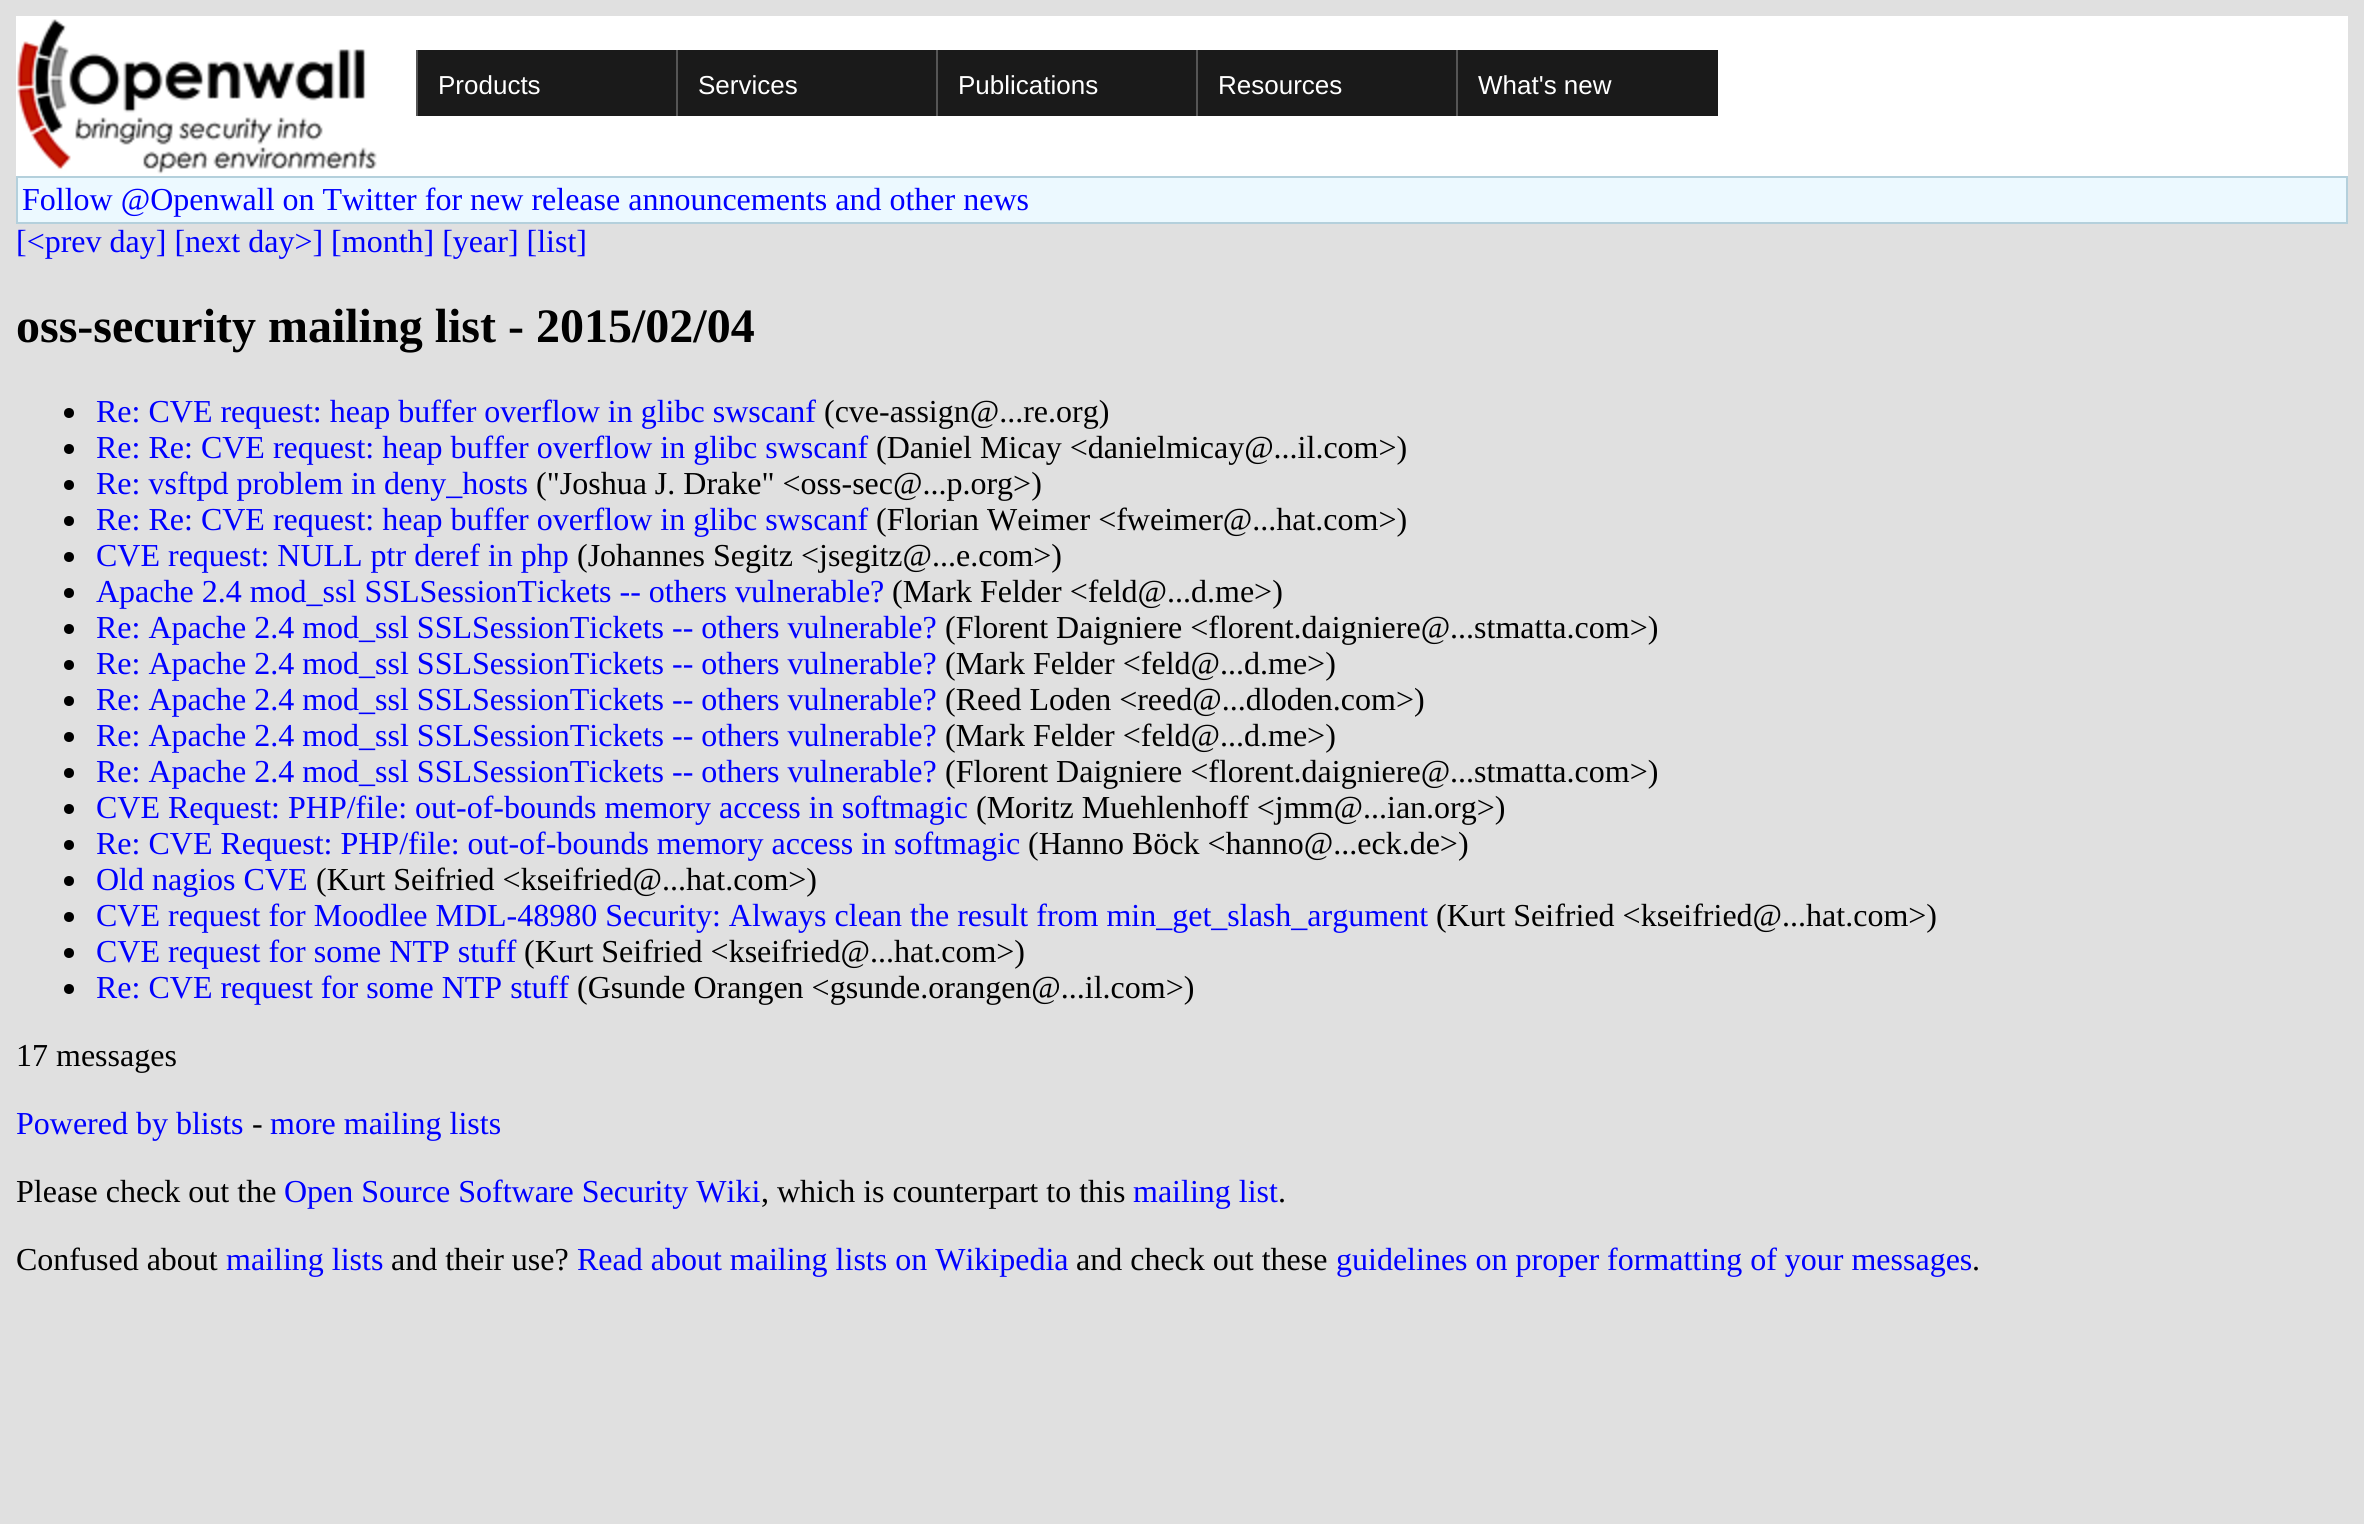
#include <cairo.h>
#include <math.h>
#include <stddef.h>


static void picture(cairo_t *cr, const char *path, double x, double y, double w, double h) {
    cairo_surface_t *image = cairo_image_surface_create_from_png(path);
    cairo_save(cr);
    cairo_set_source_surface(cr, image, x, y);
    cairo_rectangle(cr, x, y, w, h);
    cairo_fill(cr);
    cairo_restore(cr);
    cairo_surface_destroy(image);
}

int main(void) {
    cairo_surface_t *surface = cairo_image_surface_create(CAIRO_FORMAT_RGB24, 2364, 1524);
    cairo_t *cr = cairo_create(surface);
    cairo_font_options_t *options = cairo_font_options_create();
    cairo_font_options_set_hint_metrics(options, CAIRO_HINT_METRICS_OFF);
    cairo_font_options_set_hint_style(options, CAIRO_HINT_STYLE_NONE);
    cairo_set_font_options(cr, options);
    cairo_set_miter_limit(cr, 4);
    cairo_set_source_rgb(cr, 0.878, 0.878, 0.878);
    cairo_paint(cr);
    cairo_set_source_rgb(cr, 1, 1, 1);
    cairo_rectangle(cr, 16, 16, 2332, 160);
    cairo_fill(cr);
    picture(cr, "img1.png", 17, 19, 360, 155);
    cairo_set_source_rgb(cr, 0.102, 0.102, 0.102);
    cairo_rectangle(cr, 418, 50, 258, 66);
    cairo_fill(cr);
    cairo_set_source_rgb(cr, 0.333, 0.333, 0.333);
    cairo_rectangle(cr, 416, 50, 2, 66);
    cairo_fill(cr);
    cairo_select_font_face(cr, "Liberation Sans", CAIRO_FONT_SLANT_NORMAL, CAIRO_FONT_WEIGHT_NORMAL);
    cairo_set_font_size(cr, 26);
    cairo_set_source_rgb(cr, 1, 1, 1);
    cairo_move_to(cr, 438, 94);
    cairo_show_text(cr, "Products");
    cairo_set_source_rgb(cr, 0.102, 0.102, 0.102);
    cairo_rectangle(cr, 678, 50, 258, 66);
    cairo_fill(cr);
    cairo_set_source_rgb(cr, 0.333, 0.333, 0.333);
    cairo_rectangle(cr, 676, 50, 2, 66);
    cairo_fill(cr);
    cairo_set_source_rgb(cr, 1, 1, 1);
    cairo_move_to(cr, 698, 94);
    cairo_show_text(cr, "Services");
    cairo_set_source_rgb(cr, 0.102, 0.102, 0.102);
    cairo_rectangle(cr, 938, 50, 258, 66);
    cairo_fill(cr);
    cairo_set_source_rgb(cr, 0.333, 0.333, 0.333);
    cairo_rectangle(cr, 936, 50, 2, 66);
    cairo_fill(cr);
    cairo_set_source_rgb(cr, 1, 1, 1);
    cairo_move_to(cr, 958, 94);
    cairo_show_text(cr, "Publications");
    cairo_set_source_rgb(cr, 0.102, 0.102, 0.102);
    cairo_rectangle(cr, 1198, 50, 258, 66);
    cairo_fill(cr);
    cairo_set_source_rgb(cr, 0.333, 0.333, 0.333);
    cairo_rectangle(cr, 1196, 50, 2, 66);
    cairo_fill(cr);
    cairo_set_source_rgb(cr, 1, 1, 1);
    cairo_move_to(cr, 1218, 94);
    cairo_show_text(cr, "Resources");
    cairo_set_source_rgb(cr, 0.102, 0.102, 0.102);
    cairo_rectangle(cr, 1458, 50, 260, 66);
    cairo_fill(cr);
    cairo_set_source_rgb(cr, 0.333, 0.333, 0.333);
    cairo_rectangle(cr, 1456, 50, 2, 66);
    cairo_fill(cr);
    cairo_set_source_rgb(cr, 1, 1, 1);
    cairo_move_to(cr, 1478, 94);
    cairo_show_text(cr, "What's new");
    cairo_set_source_rgb(cr, 0.706, 0.816, 0.863);
    cairo_rectangle(cr, 16, 176, 2332, 48);
    cairo_fill(cr);
    cairo_set_source_rgb(cr, 0.925, 0.973, 1);
    cairo_rectangle(cr, 18, 178, 2328, 44);
    cairo_fill(cr);
    cairo_select_font_face(cr, "Liberation Serif", CAIRO_FONT_SLANT_NORMAL, CAIRO_FONT_WEIGHT_NORMAL);
    cairo_set_font_size(cr, 32);
    cairo_set_source_rgb(cr, 0, 0, 1);
    cairo_move_to(cr, 22, 210);
    cairo_show_text(cr, "Follow @Openwall on Twitter for new release announcements and other news");
    cairo_move_to(cr, 16, 252);
    cairo_show_text(cr, "[<prev day] [next day>] [month] [year] [list]");
    cairo_select_font_face(cr, "Liberation Serif", CAIRO_FONT_SLANT_NORMAL, CAIRO_FONT_WEIGHT_BOLD);
    cairo_set_font_size(cr, 48);
    cairo_set_source_rgb(cr, 0, 0, 0);
    cairo_move_to(cr, 16, 342);
    cairo_show_text(cr, "oss-security mailing list - 2015/02/04");
    cairo_new_path(cr);
    cairo_arc(cr, 69, 413, 5, 0, 2 * M_PI);
    cairo_fill(cr);
    cairo_select_font_face(cr, "Liberation Serif", CAIRO_FONT_SLANT_NORMAL, CAIRO_FONT_WEIGHT_NORMAL);
    cairo_set_font_size(cr, 32);
    cairo_set_source_rgb(cr, 0, 0, 1);
    cairo_move_to(cr, 96, 422);
    cairo_show_text(cr, "Re: CVE request: heap buffer overflow in glibc swscanf");
    cairo_set_source_rgb(cr, 0, 0, 0);
    cairo_move_to(cr, 824, 422);
    cairo_show_text(cr, "(cve-assign@...re.org)");
    cairo_new_path(cr);
    cairo_arc(cr, 69, 449, 5, 0, 2 * M_PI);
    cairo_fill(cr);
    cairo_set_source_rgb(cr, 0, 0, 1);
    cairo_move_to(cr, 96, 458);
    cairo_show_text(cr, "Re: Re: CVE request: heap buffer overflow in glibc swscanf");
    cairo_set_source_rgb(cr, 0, 0, 0);
    cairo_move_to(cr, 876, 458);
    cairo_show_text(cr, "(Daniel Micay <danielmicay@...il.com>)");
    cairo_new_path(cr);
    cairo_arc(cr, 69, 485, 5, 0, 2 * M_PI);
    cairo_fill(cr);
    cairo_set_source_rgb(cr, 0, 0, 1);
    cairo_move_to(cr, 96, 494);
    cairo_show_text(cr, "Re: vsftpd problem in deny_hosts");
    cairo_set_source_rgb(cr, 0, 0, 0);
    cairo_move_to(cr, 536, 494);
    cairo_show_text(cr, "(\"Joshua J. Drake\" <oss-sec@...p.org>)");
    cairo_new_path(cr);
    cairo_arc(cr, 69, 521, 5, 0, 2 * M_PI);
    cairo_fill(cr);
    cairo_set_source_rgb(cr, 0, 0, 1);
    cairo_move_to(cr, 96, 530);
    cairo_show_text(cr, "Re: Re: CVE request: heap buffer overflow in glibc swscanf");
    cairo_set_source_rgb(cr, 0, 0, 0);
    cairo_move_to(cr, 876, 530);
    cairo_show_text(cr, "(Florian Weimer <fweimer@...hat.com>)");
    cairo_new_path(cr);
    cairo_arc(cr, 69, 557, 5, 0, 2 * M_PI);
    cairo_fill(cr);
    cairo_set_source_rgb(cr, 0, 0, 1);
    cairo_move_to(cr, 96, 566);
    cairo_show_text(cr, "CVE request: NULL ptr deref in php");
    cairo_set_source_rgb(cr, 0, 0, 0);
    cairo_move_to(cr, 577, 566);
    cairo_show_text(cr, "(Johannes Segitz <jsegitz@...e.com>)");
    cairo_new_path(cr);
    cairo_arc(cr, 69, 593, 5, 0, 2 * M_PI);
    cairo_fill(cr);
    cairo_set_source_rgb(cr, 0, 0, 1);
    cairo_move_to(cr, 96, 602);
    cairo_show_text(cr, "Apache 2.4 mod_ssl SSLSessionTickets -- others vulnerable?");
    cairo_set_source_rgb(cr, 0, 0, 0);
    cairo_move_to(cr, 892, 602);
    cairo_show_text(cr, "(Mark Felder <feld@...d.me>)");
    cairo_new_path(cr);
    cairo_arc(cr, 69, 629, 5, 0, 2 * M_PI);
    cairo_fill(cr);
    cairo_set_source_rgb(cr, 0, 0, 1);
    cairo_move_to(cr, 96, 638);
    cairo_show_text(cr, "Re: Apache 2.4 mod_ssl SSLSessionTickets -- others vulnerable?");
    cairo_set_source_rgb(cr, 0, 0, 0);
    cairo_move_to(cr, 945, 638);
    cairo_show_text(cr, "(Florent Daigniere <florent.daigniere@...stmatta.com>)");
    cairo_new_path(cr);
    cairo_arc(cr, 69, 665, 5, 0, 2 * M_PI);
    cairo_fill(cr);
    cairo_set_source_rgb(cr, 0, 0, 1);
    cairo_move_to(cr, 96, 674);
    cairo_show_text(cr, "Re: Apache 2.4 mod_ssl SSLSessionTickets -- others vulnerable?");
    cairo_set_source_rgb(cr, 0, 0, 0);
    cairo_move_to(cr, 945, 674);
    cairo_show_text(cr, "(Mark Felder <feld@...d.me>)");
    cairo_new_path(cr);
    cairo_arc(cr, 69, 701, 5, 0, 2 * M_PI);
    cairo_fill(cr);
    cairo_set_source_rgb(cr, 0, 0, 1);
    cairo_move_to(cr, 96, 710);
    cairo_show_text(cr, "Re: Apache 2.4 mod_ssl SSLSessionTickets -- others vulnerable?");
    cairo_set_source_rgb(cr, 0, 0, 0);
    cairo_move_to(cr, 945, 710);
    cairo_show_text(cr, "(Reed Loden <reed@...dloden.com>)");
    cairo_new_path(cr);
    cairo_arc(cr, 69, 737, 5, 0, 2 * M_PI);
    cairo_fill(cr);
    cairo_set_source_rgb(cr, 0, 0, 1);
    cairo_move_to(cr, 96, 746);
    cairo_show_text(cr, "Re: Apache 2.4 mod_ssl SSLSessionTickets -- others vulnerable?");
    cairo_set_source_rgb(cr, 0, 0, 0);
    cairo_move_to(cr, 945, 746);
    cairo_show_text(cr, "(Mark Felder <feld@...d.me>)");
    cairo_new_path(cr);
    cairo_arc(cr, 69, 773, 5, 0, 2 * M_PI);
    cairo_fill(cr);
    cairo_set_source_rgb(cr, 0, 0, 1);
    cairo_move_to(cr, 96, 782);
    cairo_show_text(cr, "Re: Apache 2.4 mod_ssl SSLSessionTickets -- others vulnerable?");
    cairo_set_source_rgb(cr, 0, 0, 0);
    cairo_move_to(cr, 945, 782);
    cairo_show_text(cr, "(Florent Daigniere <florent.daigniere@...stmatta.com>)");
    cairo_new_path(cr);
    cairo_arc(cr, 69, 809, 5, 0, 2 * M_PI);
    cairo_fill(cr);
    cairo_set_source_rgb(cr, 0, 0, 1);
    cairo_move_to(cr, 96, 818);
    cairo_show_text(cr, "CVE Request: PHP/file: out-of-bounds memory access in softmagic");
    cairo_set_source_rgb(cr, 0, 0, 0);
    cairo_move_to(cr, 976, 818);
    cairo_show_text(cr, "(Moritz Muehlenhoff <jmm@...ian.org>)");
    cairo_new_path(cr);
    cairo_arc(cr, 69, 845, 5, 0, 2 * M_PI);
    cairo_fill(cr);
    cairo_set_source_rgb(cr, 0, 0, 1);
    cairo_move_to(cr, 96, 854);
    cairo_show_text(cr, "Re: CVE Request: PHP/file: out-of-bounds memory access in softmagic");
    cairo_set_source_rgb(cr, 0, 0, 0);
    cairo_move_to(cr, 1028, 854);
    cairo_show_text(cr, "(Hanno Böck <hanno@...eck.de>)");
    cairo_new_path(cr);
    cairo_arc(cr, 69, 881, 5, 0, 2 * M_PI);
    cairo_fill(cr);
    cairo_set_source_rgb(cr, 0, 0, 1);
    cairo_move_to(cr, 96, 890);
    cairo_show_text(cr, "Old nagios CVE");
    cairo_set_source_rgb(cr, 0, 0, 0);
    cairo_move_to(cr, 316, 890);
    cairo_show_text(cr, "(Kurt Seifried <kseifried@...hat.com>)");
    cairo_new_path(cr);
    cairo_arc(cr, 69, 917, 5, 0, 2 * M_PI);
    cairo_fill(cr);
    cairo_set_source_rgb(cr, 0, 0, 1);
    cairo_move_to(cr, 96, 926);
    cairo_show_text(cr, "CVE request for Moodlee MDL-48980 Security: Always clean the result from min_get_slash_argument");
    cairo_set_source_rgb(cr, 0, 0, 0);
    cairo_move_to(cr, 1436, 926);
    cairo_show_text(cr, "(Kurt Seifried <kseifried@...hat.com>)");
    cairo_new_path(cr);
    cairo_arc(cr, 69, 953, 5, 0, 2 * M_PI);
    cairo_fill(cr);
    cairo_set_source_rgb(cr, 0, 0, 1);
    cairo_move_to(cr, 96, 962);
    cairo_show_text(cr, "CVE request for some NTP stuff");
    cairo_set_source_rgb(cr, 0, 0, 0);
    cairo_move_to(cr, 524, 962);
    cairo_show_text(cr, "(Kurt Seifried <kseifried@...hat.com>)");
    cairo_new_path(cr);
    cairo_arc(cr, 69, 989, 5, 0, 2 * M_PI);
    cairo_fill(cr);
    cairo_set_source_rgb(cr, 0, 0, 1);
    cairo_move_to(cr, 96, 998);
    cairo_show_text(cr, "Re: CVE request for some NTP stuff");
    cairo_set_source_rgb(cr, 0, 0, 0);
    cairo_move_to(cr, 577, 998);
    cairo_show_text(cr, "(Gsunde Orangen <gsunde.orangen@...il.com>)");
    cairo_move_to(cr, 16, 1066);
    cairo_show_text(cr, "17 messages");
    cairo_set_source_rgb(cr, 0, 0, 1);
    cairo_move_to(cr, 16, 1134);
    cairo_show_text(cr, "Powered by blists");
    cairo_set_source_rgb(cr, 0, 0, 0);
    cairo_move_to(cr, 252, 1134);
    cairo_show_text(cr, "-");
    cairo_set_source_rgb(cr, 0, 0, 1);
    cairo_move_to(cr, 270, 1134);
    cairo_show_text(cr, "more mailing lists");
    cairo_set_source_rgb(cr, 0, 0, 0);
    cairo_move_to(cr, 16, 1202);
    cairo_show_text(cr, "Please check out the");
    cairo_set_source_rgb(cr, 0, 0, 1);
    cairo_move_to(cr, 284, 1202);
    cairo_show_text(cr, "Open Source Software Security Wiki");
    cairo_set_source_rgb(cr, 0, 0, 0);
    cairo_move_to(cr, 761, 1202);
    cairo_show_text(cr, ", which is counterpart to this");
    cairo_set_source_rgb(cr, 0, 0, 1);
    cairo_move_to(cr, 1133, 1202);
    cairo_show_text(cr, "mailing list");
    cairo_set_source_rgb(cr, 0, 0, 0);
    cairo_move_to(cr, 1278, 1202);
    cairo_show_text(cr, ".");
    cairo_move_to(cr, 16, 1270);
    cairo_show_text(cr, "Confused about");
    cairo_set_source_rgb(cr, 0, 0, 1);
    cairo_move_to(cr, 226, 1270);
    cairo_show_text(cr, "mailing lists");
    cairo_set_source_rgb(cr, 0, 0, 0);
    cairo_move_to(cr, 391, 1270);
    cairo_show_text(cr, "and their use?");
    cairo_set_source_rgb(cr, 0, 0, 1);
    cairo_move_to(cr, 577, 1270);
    cairo_show_text(cr, "Read about mailing lists on Wikipedia");
    cairo_set_source_rgb(cr, 0, 0, 0);
    cairo_move_to(cr, 1076, 1270);
    cairo_show_text(cr, "and check out these");
    cairo_set_source_rgb(cr, 0, 0, 1);
    cairo_move_to(cr, 1336, 1270);
    cairo_show_text(cr, "guidelines on proper formatting of your messages");
    cairo_set_source_rgb(cr, 0, 0, 0);
    cairo_move_to(cr, 1972, 1270);
    cairo_show_text(cr, ".");
    cairo_surface_write_to_png(surface, "page.png");
    cairo_font_options_destroy(options);
    cairo_destroy(cr);
    cairo_surface_destroy(surface);
    return 0;
}
